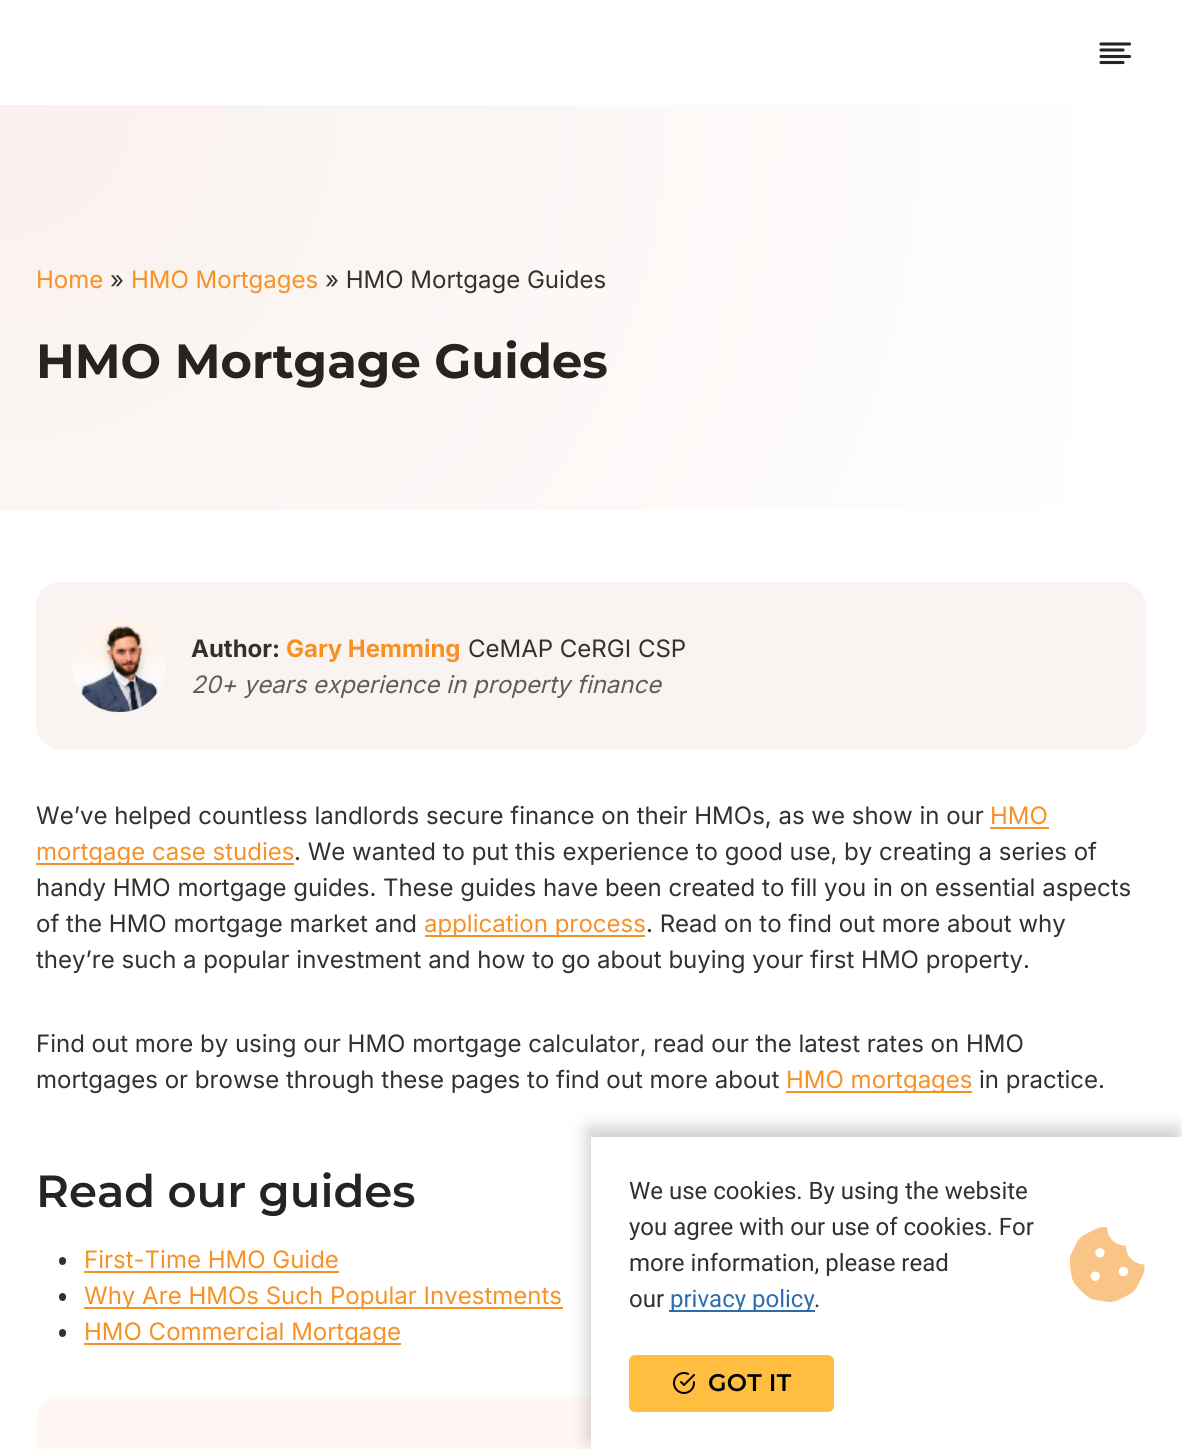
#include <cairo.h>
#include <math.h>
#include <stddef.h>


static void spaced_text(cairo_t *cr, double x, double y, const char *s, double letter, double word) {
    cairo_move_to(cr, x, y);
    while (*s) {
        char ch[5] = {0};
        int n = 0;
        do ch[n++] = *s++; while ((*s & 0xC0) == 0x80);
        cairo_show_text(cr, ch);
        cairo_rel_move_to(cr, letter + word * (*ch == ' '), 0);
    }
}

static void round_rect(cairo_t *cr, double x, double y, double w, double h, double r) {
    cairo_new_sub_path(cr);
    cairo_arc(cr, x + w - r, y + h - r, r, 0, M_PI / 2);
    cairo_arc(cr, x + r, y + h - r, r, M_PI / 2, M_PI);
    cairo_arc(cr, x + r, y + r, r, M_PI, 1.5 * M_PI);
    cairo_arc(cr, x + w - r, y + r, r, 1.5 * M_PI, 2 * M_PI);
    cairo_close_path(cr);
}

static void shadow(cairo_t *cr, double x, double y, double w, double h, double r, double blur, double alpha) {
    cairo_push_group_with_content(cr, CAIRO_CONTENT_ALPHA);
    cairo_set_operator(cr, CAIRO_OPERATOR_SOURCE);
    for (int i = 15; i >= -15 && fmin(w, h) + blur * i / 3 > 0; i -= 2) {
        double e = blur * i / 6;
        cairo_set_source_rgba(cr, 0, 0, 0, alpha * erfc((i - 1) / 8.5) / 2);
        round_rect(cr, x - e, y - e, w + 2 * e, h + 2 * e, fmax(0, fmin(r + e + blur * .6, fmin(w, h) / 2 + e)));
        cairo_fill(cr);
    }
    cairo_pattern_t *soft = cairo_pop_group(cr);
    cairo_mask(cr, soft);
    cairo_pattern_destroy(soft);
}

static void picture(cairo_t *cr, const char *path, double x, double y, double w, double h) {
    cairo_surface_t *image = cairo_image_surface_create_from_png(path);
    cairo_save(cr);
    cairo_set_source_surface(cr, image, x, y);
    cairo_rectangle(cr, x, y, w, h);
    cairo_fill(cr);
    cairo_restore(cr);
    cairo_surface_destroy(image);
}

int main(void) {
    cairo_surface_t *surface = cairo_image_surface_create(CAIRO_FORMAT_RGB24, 1182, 1449);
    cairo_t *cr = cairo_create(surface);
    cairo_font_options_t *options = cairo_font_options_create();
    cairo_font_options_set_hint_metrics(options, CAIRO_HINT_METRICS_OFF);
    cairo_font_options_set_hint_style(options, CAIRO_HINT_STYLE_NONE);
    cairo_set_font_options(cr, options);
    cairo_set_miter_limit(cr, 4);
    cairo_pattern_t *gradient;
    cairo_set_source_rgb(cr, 1, 1, 1);
    cairo_paint(cr);
    cairo_new_path(cr);
    cairo_move_to(cr, 1123, 50);
    cairo_line_to(cr, 1101, 50);
    cairo_move_to(cr, 1129.5, 44);
    cairo_line_to(cr, 1101, 44);
    cairo_move_to(cr, 1129.5, 56.5);
    cairo_line_to(cr, 1101, 56.5);
    cairo_move_to(cr, 1123, 62.5);
    cairo_line_to(cr, 1101, 62.5);
    cairo_set_source_rgb(cr, 0.149, 0.141, 0.129);
    cairo_set_line_width(cr, 3.1);
    cairo_set_line_cap(cr, CAIRO_LINE_CAP_ROUND);
    cairo_set_line_join(cr, CAIRO_LINE_JOIN_ROUND);
    cairo_stroke(cr);
    gradient = cairo_pattern_create_radial(0, 105, 0, 0, 105, 1249);
    cairo_pattern_add_color_stop_rgba(gradient, 0, 0.976, 0.945, 0.933, 1);
    cairo_pattern_add_color_stop_rgba(gradient, 1, 1, 1, 1, 1);
    cairo_set_source(cr, gradient);
    cairo_pattern_destroy(gradient);
    cairo_rectangle(cr, 0, 105, 1070, 405);
    cairo_fill(cr);
    cairo_select_font_face(cr, "Inter", CAIRO_FONT_SLANT_NORMAL, CAIRO_FONT_WEIGHT_NORMAL);
    cairo_set_font_size(cr, 24);
    cairo_set_source_rgb(cr, 0.969, 0.569, 0.141);
    cairo_move_to(cr, 36, 288);
    cairo_show_text(cr, "Home");
    cairo_set_source_rgb(cr, 0.2, 0.192, 0.18);
    cairo_move_to(cr, 110, 288);
    cairo_show_text(cr, "»");
    cairo_set_source_rgb(cr, 0.969, 0.569, 0.141);
    cairo_move_to(cr, 131, 288);
    cairo_show_text(cr, "HMO Mortgages");
    cairo_set_source_rgb(cr, 0.2, 0.192, 0.18);
    cairo_move_to(cr, 325, 288);
    cairo_show_text(cr, "» HMO Mortgage Guides");
    cairo_select_font_face(cr, "Montserrat", CAIRO_FONT_SLANT_NORMAL, CAIRO_FONT_WEIGHT_BOLD);
    cairo_set_font_size(cr, 48);
    cairo_set_source_rgb(cr, 0.149, 0.141, 0.129);
    cairo_move_to(cr, 36, 378);
    cairo_show_text(cr, "HMO Mortgage Guides");
    cairo_set_source_rgb(cr, 0.973, 0.957, 0.945);
    round_rect(cr, 36, 582, 1110, 167, 24);
    cairo_fill(cr);
    picture(cr, "img1.png", 72, 618, 94, 95);
    cairo_select_font_face(cr, "Inter", CAIRO_FONT_SLANT_NORMAL, CAIRO_FONT_WEIGHT_BOLD);
    cairo_set_font_size(cr, 24);
    cairo_set_source_rgb(cr, 0.2, 0.192, 0.18);
    cairo_move_to(cr, 191, 657);
    cairo_show_text(cr, "Author:");
    cairo_set_source_rgb(cr, 0.969, 0.569, 0.141);
    cairo_move_to(cr, 286, 657);
    cairo_show_text(cr, "Gary Hemming");
    cairo_select_font_face(cr, "Inter", CAIRO_FONT_SLANT_NORMAL, CAIRO_FONT_WEIGHT_NORMAL);
    cairo_set_source_rgb(cr, 0.2, 0.192, 0.18);
    cairo_move_to(cr, 468, 657);
    cairo_show_text(cr, "CeMAP CeRGI CSP");
    cairo_select_font_face(cr, "Inter", CAIRO_FONT_SLANT_ITALIC, CAIRO_FONT_WEIGHT_NORMAL);
    cairo_set_source_rgb(cr, 0.369, 0.365, 0.361);
    cairo_move_to(cr, 191, 693);
    cairo_show_text(cr, "20+ years experience in property finance");
    cairo_select_font_face(cr, "Inter", CAIRO_FONT_SLANT_NORMAL, CAIRO_FONT_WEIGHT_NORMAL);
    cairo_set_source_rgb(cr, 0.2, 0.192, 0.18);
    cairo_move_to(cr, 36, 824);
    cairo_show_text(cr, "We’ve helped countless landlords secure finance on their HMOs, as we show in our");
    cairo_set_source_rgb(cr, 0.969, 0.569, 0.141);
    cairo_move_to(cr, 990, 824);
    cairo_show_text(cr, "HMO");
    cairo_rectangle(cr, 990, 827, 59, 2);
    cairo_fill(cr);
    cairo_rectangle(cr, 36, 863, 258, 2);
    cairo_fill(cr);
    cairo_move_to(cr, 36, 860);
    cairo_show_text(cr, "mortgage case studies");
    cairo_set_source_rgb(cr, 0.2, 0.192, 0.18);
    cairo_move_to(cr, 294, 860);
    cairo_show_text(cr, ". We wanted to put this experience to good use, by creating a series of");
    cairo_move_to(cr, 36, 896);
    cairo_show_text(cr, "handy HMO mortgage guides. These guides have been created to fill you in on essential aspects");
    cairo_move_to(cr, 36, 932);
    cairo_show_text(cr, "of the HMO mortgage market and");
    cairo_set_source_rgb(cr, 0.969, 0.569, 0.141);
    cairo_rectangle(cr, 425, 935, 220, 2);
    cairo_fill(cr);
    cairo_move_to(cr, 424, 932);
    cairo_show_text(cr, "application process");
    cairo_set_source_rgb(cr, 0.2, 0.192, 0.18);
    cairo_move_to(cr, 646, 932);
    cairo_show_text(cr, ". Read on to find out more about why");
    cairo_move_to(cr, 36, 968);
    cairo_show_text(cr, "they’re such a popular investment and how to go about buying your first HMO property.");
    cairo_move_to(cr, 36, 1052);
    cairo_show_text(cr, "Find out more by using our HMO mortgage calculator, read our the latest rates on HMO");
    cairo_move_to(cr, 36, 1088);
    cairo_show_text(cr, "mortgages or browse through these pages to find out more about");
    cairo_set_source_rgb(cr, 0.969, 0.569, 0.141);
    cairo_rectangle(cr, 786, 1091, 186, 2);
    cairo_fill(cr);
    cairo_move_to(cr, 786, 1088);
    cairo_show_text(cr, "HMO mortgages");
    cairo_set_source_rgb(cr, 0.2, 0.192, 0.18);
    cairo_move_to(cr, 979, 1088);
    cairo_show_text(cr, "in practice.");
    cairo_select_font_face(cr, "Montserrat SemiBold", CAIRO_FONT_SLANT_NORMAL, CAIRO_FONT_WEIGHT_NORMAL);
    cairo_set_font_size(cr, 45);
    cairo_set_source_rgb(cr, 0.149, 0.141, 0.129);
    cairo_move_to(cr, 36, 1207);
    cairo_show_text(cr, "Read our guides");
    cairo_set_source_rgb(cr, 0.2, 0.192, 0.18);
    round_rect(cr, 59, 1257, 7, 8, 3.5);
    cairo_fill(cr);
    cairo_select_font_face(cr, "Inter", CAIRO_FONT_SLANT_NORMAL, CAIRO_FONT_WEIGHT_NORMAL);
    cairo_set_font_size(cr, 24);
    cairo_set_source_rgb(cr, 0.969, 0.569, 0.141);
    cairo_move_to(cr, 84, 1268);
    cairo_show_text(cr, "First-Time HMO Guide");
    cairo_rectangle(cr, 84, 1271, 255, 2);
    cairo_fill(cr);
    cairo_set_source_rgb(cr, 0.2, 0.192, 0.18);
    round_rect(cr, 59, 1293, 7, 8, 3.5);
    cairo_fill(cr);
    cairo_set_source_rgb(cr, 0.969, 0.569, 0.141);
    cairo_rectangle(cr, 84, 1307, 479, 2);
    cairo_fill(cr);
    cairo_move_to(cr, 84, 1304);
    cairo_show_text(cr, "Why Are HMOs Such Popular Investments");
    cairo_set_source_rgb(cr, 0.2, 0.192, 0.18);
    round_rect(cr, 59, 1329, 7, 8, 3.5);
    cairo_fill(cr);
    cairo_set_source_rgb(cr, 0.969, 0.569, 0.141);
    cairo_rectangle(cr, 84, 1343, 317, 2);
    cairo_fill(cr);
    cairo_move_to(cr, 84, 1340);
    cairo_show_text(cr, "HMO Commercial Mortgage");
    gradient = cairo_pattern_create_linear(284, 1229, 898, 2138);
    cairo_pattern_add_color_stop_rgba(gradient, 0.7, 1, 0.969, 0.953, 1);
    cairo_pattern_add_color_stop_rgba(gradient, 0.99, 0.976, 0.678, 0.357, 1);
    cairo_set_source(cr, gradient);
    cairo_pattern_destroy(gradient);
    round_rect(cr, 36, 1397, 1110, 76, 24);
    cairo_fill(cr);
    cairo_set_source_rgb(cr, 0, 0, 0);
    shadow(cr, 588, 1128, 591, 312, 0, 9, 0.2);
    cairo_set_source_rgb(cr, 1, 1, 1);
    cairo_rectangle(cr, 591, 1137, 591, 312);
    cairo_fill(cr);
    cairo_select_font_face(cr, "Roboto", CAIRO_FONT_SLANT_NORMAL, CAIRO_FONT_WEIGHT_NORMAL);
    cairo_set_source_rgb(cr, 0.2, 0.192, 0.18);
    cairo_move_to(cr, 629, 1199);
    cairo_show_text(cr, "We use cookies. By using the website");
    cairo_move_to(cr, 629, 1235);
    cairo_show_text(cr, "you agree with our use of cookies. For");
    cairo_move_to(cr, 629, 1271);
    cairo_show_text(cr, "more information, please read");
    cairo_move_to(cr, 629, 1307);
    cairo_show_text(cr, "our");
    cairo_set_source_rgb(cr, 0.169, 0.424, 0.69);
    cairo_rectangle(cr, 669, 1310, 146, 2);
    cairo_fill(cr);
    cairo_move_to(cr, 670, 1307);
    cairo_show_text(cr, "privacy policy");
    cairo_set_source_rgb(cr, 0.2, 0.192, 0.18);
    cairo_move_to(cr, 814, 1307);
    cairo_show_text(cr, ".");
    picture(cr, "img2.png", 1070, 1227, 75, 75);
    cairo_set_source_rgb(cr, 1, 0.745, 0.251);
    round_rect(cr, 629, 1355, 205, 57, 6);
    cairo_fill(cr);
    picture(cr, "img3.png", 673, 1372, 22, 22);
    cairo_select_font_face(cr, "Montserrat SemiBold", CAIRO_FONT_SLANT_NORMAL, CAIRO_FONT_WEIGHT_NORMAL);
    cairo_set_source_rgb(cr, 0, 0, 0);
    spaced_text(cr, 708, 1391, "GOT IT", 0.25, 0);
    cairo_surface_write_to_png(surface, "page.png");
    cairo_font_options_destroy(options);
    cairo_destroy(cr);
    cairo_surface_destroy(surface);
    return 0;
}
